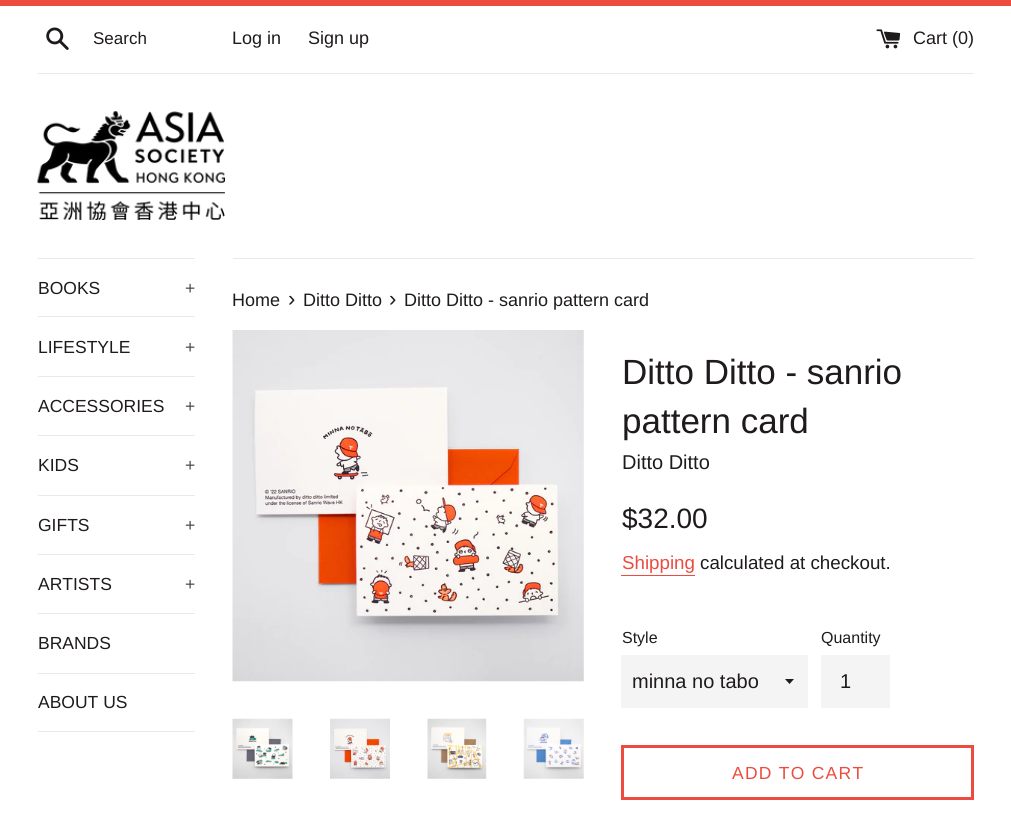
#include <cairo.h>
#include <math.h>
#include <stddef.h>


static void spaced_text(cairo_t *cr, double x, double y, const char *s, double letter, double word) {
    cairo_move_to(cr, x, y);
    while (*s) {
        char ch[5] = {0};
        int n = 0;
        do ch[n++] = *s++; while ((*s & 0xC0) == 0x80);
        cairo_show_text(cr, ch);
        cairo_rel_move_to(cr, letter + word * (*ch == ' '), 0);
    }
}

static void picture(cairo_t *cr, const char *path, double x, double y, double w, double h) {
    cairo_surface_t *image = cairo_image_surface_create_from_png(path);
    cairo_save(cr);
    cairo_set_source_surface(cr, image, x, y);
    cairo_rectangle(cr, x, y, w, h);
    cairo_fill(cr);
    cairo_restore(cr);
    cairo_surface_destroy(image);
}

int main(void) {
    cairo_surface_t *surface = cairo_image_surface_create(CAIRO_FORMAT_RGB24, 1011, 826);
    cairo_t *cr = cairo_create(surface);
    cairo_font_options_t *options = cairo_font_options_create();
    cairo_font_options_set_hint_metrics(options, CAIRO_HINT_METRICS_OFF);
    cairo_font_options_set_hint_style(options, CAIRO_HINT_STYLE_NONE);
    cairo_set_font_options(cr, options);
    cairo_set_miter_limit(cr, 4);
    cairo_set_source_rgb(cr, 1, 1, 1);
    cairo_paint(cr);
    cairo_set_source_rgb(cr, 0.929, 0.294, 0.251);
    cairo_rectangle(cr, 0, 0, 1011, 6);
    cairo_fill(cr);
    picture(cr, "img1.png", 46, 27, 23, 23);
    cairo_select_font_face(cr, "Liberation Sans", CAIRO_FONT_SLANT_NORMAL, CAIRO_FONT_WEIGHT_NORMAL);
    cairo_set_font_size(cr, 17);
    cairo_set_source_rgb(cr, 0.122, 0.106, 0.11);
    cairo_move_to(cr, 93, 44);
    cairo_show_text(cr, "Search");
    cairo_set_font_size(cr, 18);
    cairo_move_to(cr, 232, 44);
    cairo_show_text(cr, "Log in");
    cairo_move_to(cr, 308, 44);
    cairo_show_text(cr, "Sign up");
    picture(cr, "img2.png", 876, 29, 25, 20);
    cairo_move_to(cr, 913, 44);
    cairo_show_text(cr, "Cart (0)");
    cairo_set_source_rgb(cr, 0.929, 0.91, 0.906);
    cairo_rectangle(cr, 38, 73, 936, 1);
    cairo_fill(cr);
    picture(cr, "img3.png", 37, 111, 188, 109);
    cairo_rectangle(cr, 38, 258, 157, 1);
    cairo_fill(cr);
    cairo_rectangle(cr, 38, 316, 157, 1);
    cairo_fill(cr);
    cairo_set_font_size(cr, 17.5);
    cairo_set_source_rgb(cr, 0.122, 0.106, 0.11);
    cairo_move_to(cr, 38, 294);
    cairo_show_text(cr, "BOOKS");
    cairo_set_source_rgb(cr, 0.298, 0.286, 0.286);
    cairo_move_to(cr, 185, 294);
    cairo_show_text(cr, "+");
    cairo_set_source_rgb(cr, 0.929, 0.91, 0.906);
    cairo_rectangle(cr, 38, 376, 157, 1);
    cairo_fill(cr);
    cairo_set_source_rgb(cr, 0.122, 0.106, 0.11);
    cairo_move_to(cr, 38, 353);
    cairo_show_text(cr, "LIFESTYLE");
    cairo_set_source_rgb(cr, 0.298, 0.286, 0.286);
    cairo_move_to(cr, 185, 353);
    cairo_show_text(cr, "+");
    cairo_set_source_rgb(cr, 0.929, 0.91, 0.906);
    cairo_rectangle(cr, 38, 435, 157, 1);
    cairo_fill(cr);
    cairo_set_source_rgb(cr, 0.122, 0.106, 0.11);
    cairo_move_to(cr, 38, 412);
    cairo_show_text(cr, "ACCESSORIES");
    cairo_set_source_rgb(cr, 0.298, 0.286, 0.286);
    cairo_move_to(cr, 185, 412);
    cairo_show_text(cr, "+");
    cairo_set_source_rgb(cr, 0.929, 0.91, 0.906);
    cairo_rectangle(cr, 38, 495, 157, 1);
    cairo_fill(cr);
    cairo_set_source_rgb(cr, 0.122, 0.106, 0.11);
    cairo_move_to(cr, 38, 471);
    cairo_show_text(cr, "KIDS");
    cairo_set_source_rgb(cr, 0.298, 0.286, 0.286);
    cairo_move_to(cr, 185, 471);
    cairo_show_text(cr, "+");
    cairo_set_source_rgb(cr, 0.929, 0.91, 0.906);
    cairo_rectangle(cr, 38, 554, 157, 1);
    cairo_fill(cr);
    cairo_set_source_rgb(cr, 0.122, 0.106, 0.11);
    cairo_move_to(cr, 38, 531);
    cairo_show_text(cr, "GIFTS");
    cairo_set_source_rgb(cr, 0.298, 0.286, 0.286);
    cairo_move_to(cr, 185, 531);
    cairo_show_text(cr, "+");
    cairo_set_source_rgb(cr, 0.929, 0.91, 0.906);
    cairo_rectangle(cr, 38, 613, 157, 1);
    cairo_fill(cr);
    cairo_set_source_rgb(cr, 0.122, 0.106, 0.11);
    cairo_move_to(cr, 38, 590);
    cairo_show_text(cr, "ARTISTS");
    cairo_set_source_rgb(cr, 0.298, 0.286, 0.286);
    cairo_move_to(cr, 185, 590);
    cairo_show_text(cr, "+");
    cairo_set_source_rgb(cr, 0.929, 0.91, 0.906);
    cairo_rectangle(cr, 38, 673, 157, 1);
    cairo_fill(cr);
    cairo_set_source_rgb(cr, 0.122, 0.106, 0.11);
    cairo_move_to(cr, 38, 649);
    cairo_show_text(cr, "BRANDS");
    cairo_set_source_rgb(cr, 0.929, 0.91, 0.906);
    cairo_rectangle(cr, 38, 731, 157, 1);
    cairo_fill(cr);
    cairo_set_source_rgb(cr, 0.122, 0.106, 0.11);
    cairo_move_to(cr, 38, 708);
    cairo_show_text(cr, "ABOUT US");
    cairo_set_source_rgb(cr, 0.929, 0.91, 0.906);
    cairo_rectangle(cr, 233, 258, 741, 1);
    cairo_fill(cr);
    cairo_set_font_size(cr, 18);
    cairo_set_source_rgb(cr, 0.122, 0.106, 0.11);
    cairo_move_to(cr, 232, 306);
    cairo_show_text(cr, "Home");
    cairo_set_font_size(cr, 22);
    cairo_move_to(cr, 288, 306);
    cairo_show_text(cr, "›");
    cairo_set_font_size(cr, 18);
    cairo_move_to(cr, 303, 306);
    cairo_show_text(cr, "Ditto Ditto");
    cairo_set_font_size(cr, 22);
    cairo_move_to(cr, 389, 306);
    cairo_show_text(cr, "›");
    cairo_set_font_size(cr, 18);
    cairo_move_to(cr, 404, 306);
    cairo_show_text(cr, "Ditto Ditto - sanrio pattern card");
    picture(cr, "img4.png", 232, 330, 352, 352);
    picture(cr, "img5.png", 232, 718, 61, 61);
    picture(cr, "img6.png", 330, 718, 60, 61);
    picture(cr, "img7.png", 427, 718, 60, 61);
    picture(cr, "img8.png", 523, 718, 61, 61);
    cairo_set_font_size(cr, 35);
    cairo_move_to(cr, 622, 384);
    cairo_show_text(cr, "Ditto Ditto - sanrio");
    cairo_move_to(cr, 622, 433);
    cairo_show_text(cr, "pattern card");
    cairo_set_font_size(cr, 20);
    cairo_move_to(cr, 622, 469);
    cairo_show_text(cr, "Ditto Ditto");
    cairo_set_font_size(cr, 28);
    cairo_move_to(cr, 622, 528);
    cairo_show_text(cr, "$32.00");
    cairo_set_font_size(cr, 18.75);
    cairo_set_source_rgb(cr, 0.929, 0.294, 0.251);
    cairo_move_to(cr, 622, 569);
    cairo_show_text(cr, "Shipping");
    cairo_rectangle(cr, 621, 575, 74, 1);
    cairo_fill(cr);
    cairo_set_source_rgb(cr, 0.122, 0.106, 0.11);
    cairo_move_to(cr, 700, 569);
    cairo_show_text(cr, "calculated at checkout.");
    cairo_set_font_size(cr, 16);
    cairo_move_to(cr, 622, 643);
    cairo_show_text(cr, "Style");
    cairo_set_source_rgb(cr, 0.957, 0.957, 0.957);
    cairo_rectangle(cr, 621, 655, 187, 53);
    cairo_fill(cr);
    cairo_set_source_rgb(cr, 0.122, 0.106, 0.11);
    cairo_new_path(cr);
    cairo_move_to(cr, 785, 679);
    cairo_line_to(cr, 789.5, 684);
    cairo_line_to(cr, 794, 679);
    cairo_close_path(cr);
    cairo_fill(cr);
    cairo_set_font_size(cr, 20);
    cairo_move_to(cr, 632, 688);
    cairo_show_text(cr, "minna no tabo");
    cairo_set_font_size(cr, 16);
    cairo_move_to(cr, 821, 643);
    cairo_show_text(cr, "Quantity");
    cairo_set_source_rgb(cr, 0.957, 0.957, 0.957);
    cairo_rectangle(cr, 821, 655, 69, 53);
    cairo_fill(cr);
    cairo_set_font_size(cr, 20);
    cairo_set_source_rgb(cr, 0.122, 0.106, 0.11);
    cairo_move_to(cr, 840, 688);
    cairo_show_text(cr, "1");
    cairo_rectangle(cr, 622.5, 746.5, 350, 52);
    cairo_set_source_rgb(cr, 0.929, 0.294, 0.251);
    cairo_set_line_width(cr, 3);
    cairo_stroke(cr);
    cairo_set_font_size(cr, 17.5);
    spaced_text(cr, 732, 779, "ADD TO CART", 1.25, 0);
    cairo_surface_write_to_png(surface, "page.png");
    cairo_font_options_destroy(options);
    cairo_destroy(cr);
    cairo_surface_destroy(surface);
    return 0;
}
